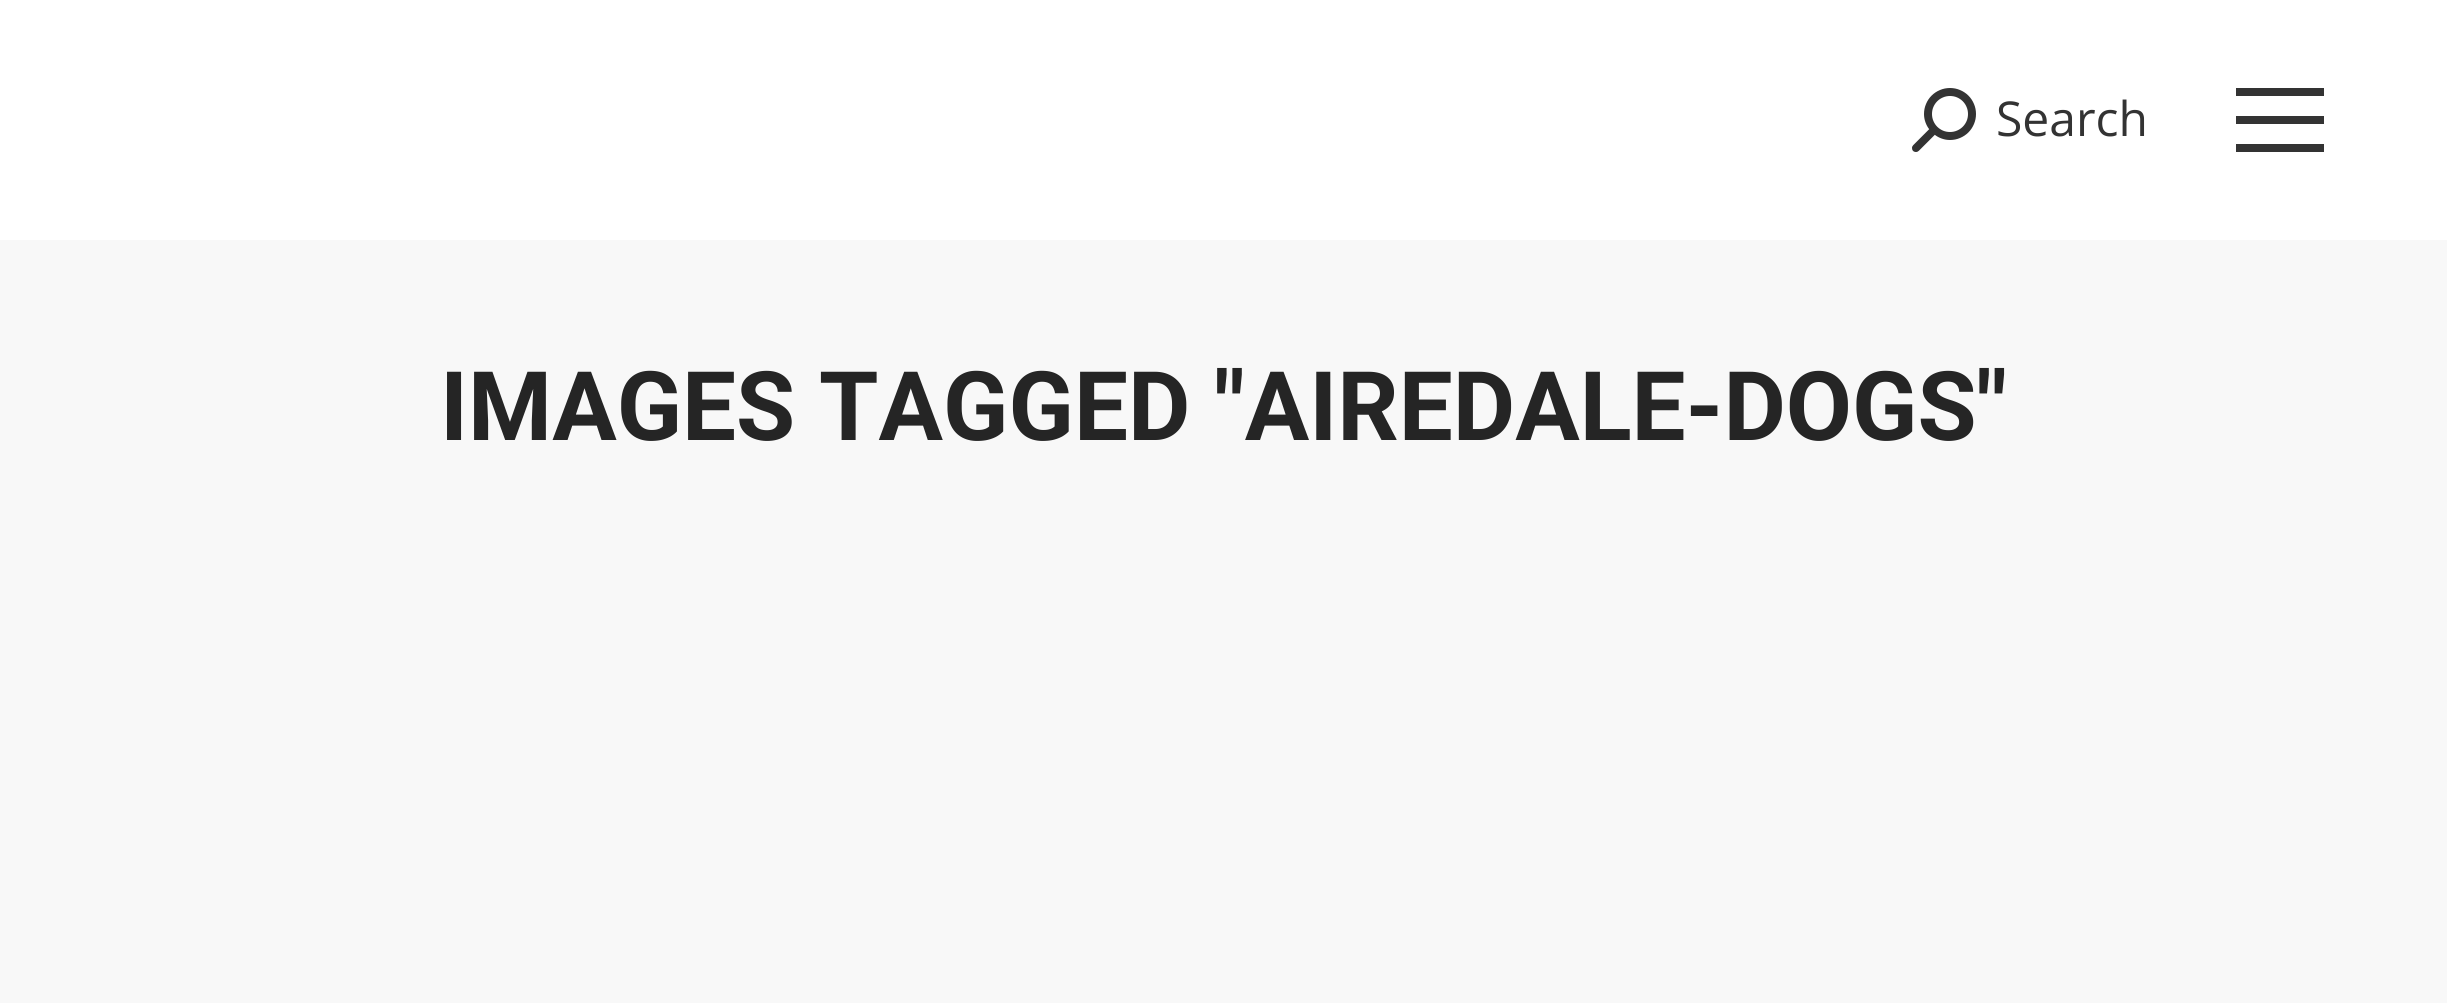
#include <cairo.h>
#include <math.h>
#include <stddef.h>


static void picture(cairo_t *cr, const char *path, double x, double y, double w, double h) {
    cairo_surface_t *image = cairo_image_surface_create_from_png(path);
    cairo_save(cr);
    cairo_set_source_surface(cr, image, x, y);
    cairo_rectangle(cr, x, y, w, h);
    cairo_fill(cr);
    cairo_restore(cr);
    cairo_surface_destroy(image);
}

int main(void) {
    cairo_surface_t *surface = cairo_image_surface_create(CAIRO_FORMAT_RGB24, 2447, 1003);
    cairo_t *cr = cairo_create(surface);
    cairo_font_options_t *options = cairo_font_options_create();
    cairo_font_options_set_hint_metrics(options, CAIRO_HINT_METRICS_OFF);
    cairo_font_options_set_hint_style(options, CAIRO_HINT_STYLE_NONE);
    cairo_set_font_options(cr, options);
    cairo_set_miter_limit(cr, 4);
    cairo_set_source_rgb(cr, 1, 1, 1);
    cairo_paint(cr);
    picture(cr, "img1.png", 1912, 88, 64, 64);
    cairo_select_font_face(cr, "Open Sans", CAIRO_FONT_SLANT_NORMAL, CAIRO_FONT_WEIGHT_NORMAL);
    cairo_set_font_size(cr, 48);
    cairo_set_source_rgb(cr, 0.2, 0.2, 0.2);
    cairo_move_to(cr, 1996, 136);
    cairo_show_text(cr, "Search");
    cairo_rectangle(cr, 2236, 88, 88, 8);
    cairo_fill(cr);
    cairo_rectangle(cr, 2236, 116, 88, 8);
    cairo_fill(cr);
    cairo_rectangle(cr, 2236, 144, 88, 8);
    cairo_fill(cr);
    cairo_set_source_rgb(cr, 0.969, 0.969, 0.969);
    cairo_rectangle(cr, 0, 240, 2447, 763);
    cairo_fill(cr);
    cairo_select_font_face(cr, "Roboto", CAIRO_FONT_SLANT_NORMAL, CAIRO_FONT_WEIGHT_BOLD);
    cairo_set_font_size(cr, 96);
    cairo_set_source_rgb(cr, 0.145, 0.145, 0.145);
    cairo_move_to(cr, 440, 440);
    cairo_show_text(cr, "IMAGES TAGGED \"AIREDALE-DOGS\"");
    cairo_surface_write_to_png(surface, "page.png");
    cairo_font_options_destroy(options);
    cairo_destroy(cr);
    cairo_surface_destroy(surface);
    return 0;
}
